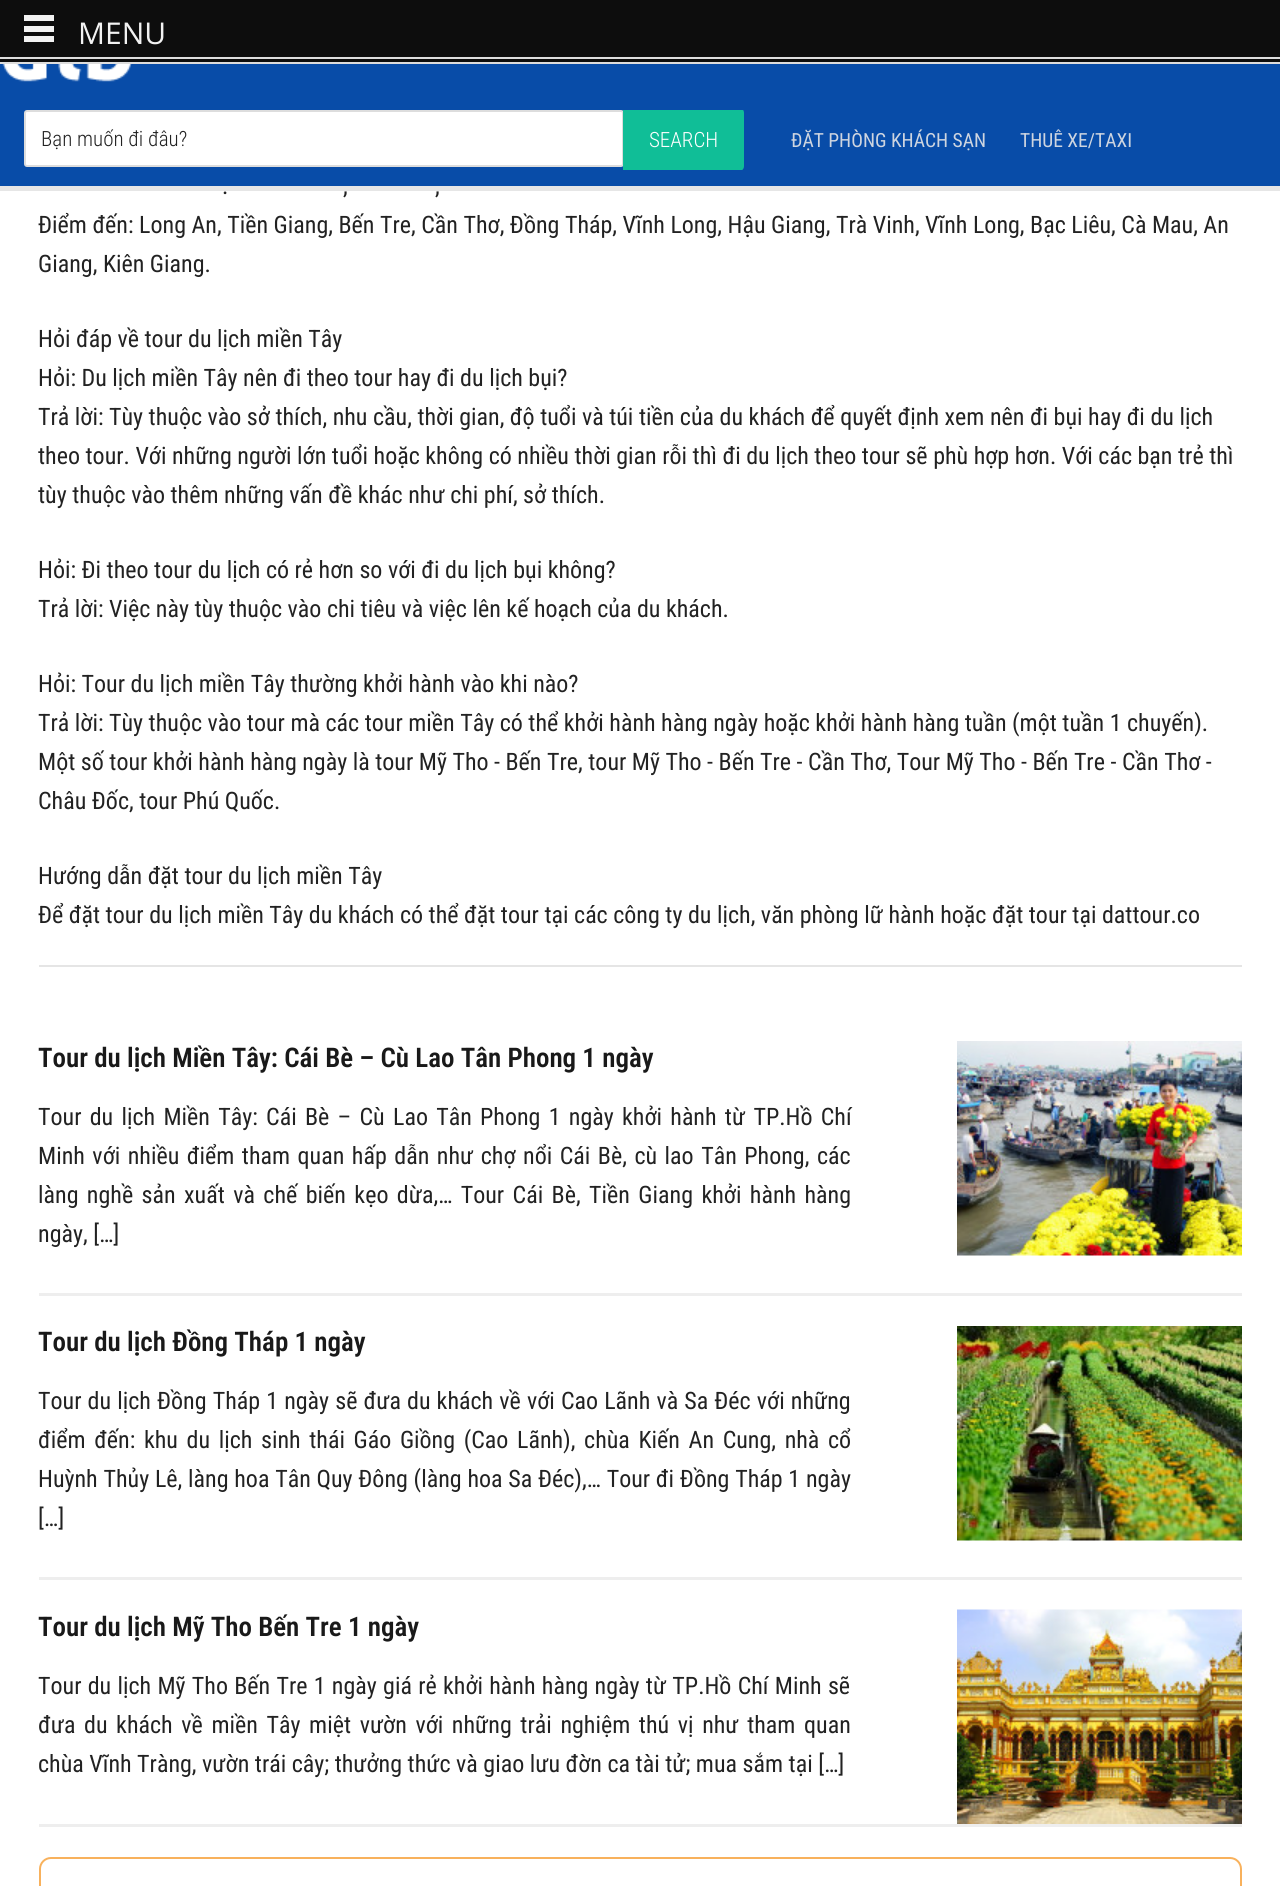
#include <cairo.h>
#include <math.h>
#include <stddef.h>


static void spaced_text(cairo_t *cr, double x, double y, const char *s, double letter, double word) {
    cairo_move_to(cr, x, y);
    while (*s) {
        char ch[5] = {0};
        int n = 0;
        do ch[n++] = *s++; while ((*s & 0xC0) == 0x80);
        cairo_show_text(cr, ch);
        cairo_rel_move_to(cr, letter + word * (*ch == ' '), 0);
    }
}

static void round_rect(cairo_t *cr, double x, double y, double w, double h, double r) {
    cairo_new_sub_path(cr);
    cairo_arc(cr, x + w - r, y + h - r, r, 0, M_PI / 2);
    cairo_arc(cr, x + r, y + h - r, r, M_PI / 2, M_PI);
    cairo_arc(cr, x + r, y + r, r, M_PI, 1.5 * M_PI);
    cairo_arc(cr, x + w - r, y + r, r, 1.5 * M_PI, 2 * M_PI);
    cairo_close_path(cr);
}

static void picture(cairo_t *cr, const char *path, double x, double y, double w, double h) {
    cairo_surface_t *image = cairo_image_surface_create_from_png(path);
    cairo_save(cr);
    cairo_set_source_surface(cr, image, x, y);
    cairo_rectangle(cr, x, y, w, h);
    cairo_fill(cr);
    cairo_restore(cr);
    cairo_surface_destroy(image);
}

int main(void) {
    cairo_surface_t *surface = cairo_image_surface_create(CAIRO_FORMAT_RGB24, 1280, 1886);
    cairo_t *cr = cairo_create(surface);
    cairo_font_options_t *options = cairo_font_options_create();
    cairo_font_options_set_hint_metrics(options, CAIRO_HINT_METRICS_OFF);
    cairo_font_options_set_hint_style(options, CAIRO_HINT_STYLE_NONE);
    cairo_set_font_options(cr, options);
    cairo_set_miter_limit(cr, 4);
    cairo_set_source_rgb(cr, 1, 1, 1);
    cairo_paint(cr);
    cairo_set_source_rgb(cr, 0.051, 0.051, 0.051);
    cairo_rectangle(cr, 0, 0, 1280, 62);
    cairo_fill(cr);
    cairo_set_source_rgb(cr, 0.867, 0.867, 0.867);
    cairo_rectangle(cr, 0, 57, 1280, 2);
    cairo_fill(cr);
    cairo_rectangle(cr, 0, 62, 1280, 2);
    cairo_fill(cr);
    cairo_set_source_rgb(cr, 0.949, 0.949, 0.949);
    cairo_rectangle(cr, 24, 15, 30, 6);
    cairo_fill(cr);
    cairo_rectangle(cr, 24, 26, 30, 6);
    cairo_fill(cr);
    cairo_rectangle(cr, 24, 36, 30, 6);
    cairo_fill(cr);
    cairo_select_font_face(cr, "Open Sans", CAIRO_FONT_SLANT_NORMAL, CAIRO_FONT_WEIGHT_NORMAL);
    cairo_set_font_size(cr, 30);
    cairo_move_to(cr, 78, 44);
    cairo_show_text(cr, "MENU");
    cairo_set_source_rgba(cr, 0, 0, 0, 0.1);
    cairo_rectangle(cr, 0, 186, 1280, 5);
    cairo_fill(cr);
    cairo_set_source_rgb(cr, 0.035, 0.298, 0.659);
    cairo_rectangle(cr, 0, 64, 1280, 122);
    cairo_fill(cr);
    picture(cr, "img1.png", 2, 64, 130, 18);
    cairo_set_source_rgb(cr, 1, 1, 1);
    round_rect(cr, 25, 111, 598, 55, 2);
    cairo_fill_preserve(cr);
    cairo_set_source_rgb(cr, 0.867, 0.867, 0.867);
    cairo_stroke(cr);
    cairo_select_font_face(cr, "Roboto Condensed Light", CAIRO_FONT_SLANT_NORMAL, CAIRO_FONT_WEIGHT_NORMAL);
    cairo_set_font_size(cr, 21);
    cairo_set_source_rgb(cr, 0.133, 0.133, 0.133);
    cairo_move_to(cr, 41, 146);
    cairo_show_text(cr, "Bạn muốn đi đâu?");
    cairo_save(cr);
    cairo_rectangle(cr, 24, 110, 750, 60);
    cairo_clip(cr);
    cairo_set_source_rgb(cr, 0.063, 0.745, 0.592);
    cairo_new_path(cr);
    cairo_move_to(cr, 623, 108);
    cairo_line_to(cr, 739, 108);
    cairo_curve_to(cr, 742, 108, 744, 110, 744, 113);
    cairo_line_to(cr, 744, 166);
    cairo_curve_to(cr, 744, 169, 742, 171, 739, 171);
    cairo_line_to(cr, 623, 171);
    cairo_close_path(cr);
    cairo_fill(cr);
    cairo_restore(cr);
    cairo_set_source_rgb(cr, 1, 1, 1);
    cairo_move_to(cr, 649, 147);
    cairo_show_text(cr, "SEARCH");
    cairo_select_font_face(cr, "Roboto Condensed", CAIRO_FONT_SLANT_NORMAL, CAIRO_FONT_WEIGHT_NORMAL);
    cairo_set_font_size(cr, 19.5);
    cairo_set_source_rgb(cr, 0.808, 0.835, 0.878);
    cairo_move_to(cr, 791, 147);
    cairo_show_text(cr, "ĐẶT PHÒNG KHÁCH SẠN");
    cairo_move_to(cr, 1020, 147);
    cairo_show_text(cr, "THUÊ XE/TAXI");
    cairo_set_source_rgb(cr, 0.898, 0.898, 0.898);
    cairo_rectangle(cr, 39, 965, 1203, 2);
    cairo_fill(cr);
    cairo_set_font_size(cr, 24);
    cairo_set_source_rgb(cr, 0.133, 0.133, 0.133);
    cairo_move_to(cr, 222, 194);
    cairo_show_text(cr, ".");
    cairo_move_to(cr, 343, 194);
    cairo_show_text(cr, ",");
    cairo_move_to(cr, 435, 194);
    cairo_show_text(cr, ",");
    cairo_move_to(cr, 38, 233);
    cairo_show_text(cr, "Điểm đến: Long An, Tiền Giang, Bến Tre, Cần Thơ, Đồng Tháp, Vĩnh Long, Hậu Giang, Trà Vinh, Vĩnh Long, Bạc Liêu, Cà Mau, An");
    cairo_move_to(cr, 38, 272);
    cairo_show_text(cr, "Giang, Kiên Giang.");
    cairo_move_to(cr, 38, 347);
    cairo_show_text(cr, "Hỏi đáp về tour du lịch miền Tây");
    cairo_move_to(cr, 38, 386);
    cairo_show_text(cr, "Hỏi: Du lịch miền Tây nên đi theo tour hay đi du lịch bụi?");
    cairo_move_to(cr, 38, 425);
    cairo_show_text(cr, "Trả lời: Tùy thuộc vào sở thích, nhu cầu, thời gian, độ tuổi và túi tiền của du khách để quyết định xem nên đi bụi hay đi du lịch");
    cairo_move_to(cr, 38, 464);
    cairo_show_text(cr, "theo tour. Với những người lớn tuổi hoặc không có nhiều thời gian rỗi thì đi du lịch theo tour sẽ phù hợp hơn. Với các bạn trẻ thì");
    cairo_move_to(cr, 38, 503);
    cairo_show_text(cr, "tùy thuộc vào thêm những vấn đề khác như chi phí, sở thích.");
    cairo_move_to(cr, 38, 578);
    cairo_show_text(cr, "Hỏi: Đi theo tour du lịch có rẻ hơn so với đi du lịch bụi không?");
    cairo_move_to(cr, 38, 617);
    cairo_show_text(cr, "Trả lời: Việc này tùy thuộc vào chi tiêu và việc lên kế hoạch của du khách.");
    cairo_move_to(cr, 38, 692);
    cairo_show_text(cr, "Hỏi: Tour du lịch miền Tây thường khởi hành vào khi nào?");
    cairo_move_to(cr, 38, 731);
    cairo_show_text(cr, "Trả lời: Tùy thuộc vào tour mà các tour miền Tây có thể khởi hành hàng ngày hoặc khởi hành hàng tuần (một tuần 1 chuyến).");
    cairo_move_to(cr, 38, 770);
    cairo_show_text(cr, "Một số tour khởi hành hàng ngày là tour Mỹ Tho - Bến Tre, tour Mỹ Tho - Bến Tre - Cần Thơ, Tour Mỹ Tho - Bến Tre - Cần Thơ -");
    cairo_move_to(cr, 38, 809);
    cairo_show_text(cr, "Châu Đốc, tour Phú Quốc.");
    cairo_move_to(cr, 38, 884);
    cairo_show_text(cr, "Hướng dẫn đặt tour du lịch miền Tây");
    cairo_move_to(cr, 38, 923);
    cairo_show_text(cr, "Để đặt tour du lịch miền Tây du khách có thể đặt tour tại các công ty du lịch, văn phòng lữ hành hoặc đặt tour tại dattour.co");
    cairo_set_source_rgb(cr, 0.933, 0.933, 0.933);
    cairo_rectangle(cr, 39, 1293, 1203, 3);
    cairo_fill(cr);
    cairo_select_font_face(cr, "Roboto Condensed SemiBold", CAIRO_FONT_SLANT_NORMAL, CAIRO_FONT_WEIGHT_NORMAL);
    cairo_set_font_size(cr, 27);
    cairo_set_source_rgb(cr, 0.098, 0.098, 0.098);
    cairo_move_to(cr, 38, 1067);
    cairo_show_text(cr, "Tour du lịch Miền Tây: Cái Bè – Cù Lao Tân Phong 1 ngày");
    picture(cr, "img2.png", 957, 1041, 285, 215);
    cairo_select_font_face(cr, "Roboto Condensed", CAIRO_FONT_SLANT_NORMAL, CAIRO_FONT_WEIGHT_NORMAL);
    cairo_set_font_size(cr, 24);
    cairo_set_source_rgb(cr, 0.133, 0.133, 0.133);
    spaced_text(cr, 38, 1125, "Tour du lịch Miền Tây: Cái Bè – Cù Lao Tân Phong 1 ngày khởi hành từ TP.Hồ Chí", 0, 2.75);
    spaced_text(cr, 38, 1164, "Minh với nhiều điểm tham quan hấp dẫn như chợ nổi Cái Bè, cù lao Tân Phong, các", 0, 2);
    spaced_text(cr, 38, 1203, "làng nghề sản xuất và chế biến kẹo dừa,… Tour Cái Bè, Tiền Giang khởi hành hàng", 0, 2.9);
    cairo_move_to(cr, 38, 1242);
    cairo_show_text(cr, "ngày, […]");
    cairo_set_source_rgb(cr, 0.933, 0.933, 0.933);
    cairo_rectangle(cr, 39, 1577, 1203, 3);
    cairo_fill(cr);
    cairo_select_font_face(cr, "Roboto Condensed SemiBold", CAIRO_FONT_SLANT_NORMAL, CAIRO_FONT_WEIGHT_NORMAL);
    cairo_set_font_size(cr, 27);
    cairo_set_source_rgb(cr, 0.098, 0.098, 0.098);
    cairo_move_to(cr, 38, 1351);
    cairo_show_text(cr, "Tour du lịch Đồng Tháp 1 ngày");
    picture(cr, "img3.png", 957, 1326, 285, 215);
    cairo_select_font_face(cr, "Roboto Condensed", CAIRO_FONT_SLANT_NORMAL, CAIRO_FONT_WEIGHT_NORMAL);
    cairo_set_font_size(cr, 24);
    cairo_set_source_rgb(cr, 0.133, 0.133, 0.133);
    spaced_text(cr, 38, 1409, "Tour du lịch Đồng Tháp 1 ngày sẽ đưa du khách về với Cao Lãnh và Sa Đéc với những", 0, 0.6);
    spaced_text(cr, 38, 1448, "điểm đến: khu du lịch sinh thái Gáo Giồng (Cao Lãnh), chùa Kiến An Cung, nhà cổ", 0, 3.1);
    spaced_text(cr, 38, 1487, "Huỳnh Thủy Lê, làng hoa Tân Quy Đông (làng hoa Sa Đéc),… Tour đi Đồng Tháp 1 ngày", 0, 0.25);
    cairo_move_to(cr, 38, 1526);
    cairo_show_text(cr, "[…]");
    cairo_set_source_rgb(cr, 0.933, 0.933, 0.933);
    cairo_rectangle(cr, 39, 1824, 1203, 3);
    cairo_fill(cr);
    cairo_select_font_face(cr, "Roboto Condensed SemiBold", CAIRO_FONT_SLANT_NORMAL, CAIRO_FONT_WEIGHT_NORMAL);
    cairo_set_font_size(cr, 27);
    cairo_set_source_rgb(cr, 0.098, 0.098, 0.098);
    cairo_move_to(cr, 38, 1636);
    cairo_show_text(cr, "Tour du lịch Mỹ Tho Bến Tre 1 ngày");
    picture(cr, "img4.png", 957, 1609, 285, 215);
    cairo_select_font_face(cr, "Roboto Condensed", CAIRO_FONT_SLANT_NORMAL, CAIRO_FONT_WEIGHT_NORMAL);
    cairo_set_font_size(cr, 24);
    cairo_set_source_rgb(cr, 0.133, 0.133, 0.133);
    spaced_text(cr, 38, 1694, "Tour du lịch Mỹ Tho Bến Tre 1 ngày giá rẻ khởi hành hàng ngày từ TP.Hồ Chí Minh sẽ", 0, 0.75);
    spaced_text(cr, 38, 1733, "đưa du khách về miền Tây miệt vườn với những trải nghiệm thú vị như tham quan", 0, 3.1);
    cairo_move_to(cr, 38, 1772);
    cairo_show_text(cr, "chùa Vĩnh Tràng, vườn trái cây; thưởng thức và giao lưu đờn ca tài tử; mua sắm tại […]");
    round_rect(cr, 40, 1858, 1201, 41, 11);
    cairo_set_source_rgb(cr, 0.969, 0.694, 0.361);
    cairo_stroke(cr);
    cairo_surface_write_to_png(surface, "page.png");
    cairo_font_options_destroy(options);
    cairo_destroy(cr);
    cairo_surface_destroy(surface);
    return 0;
}
